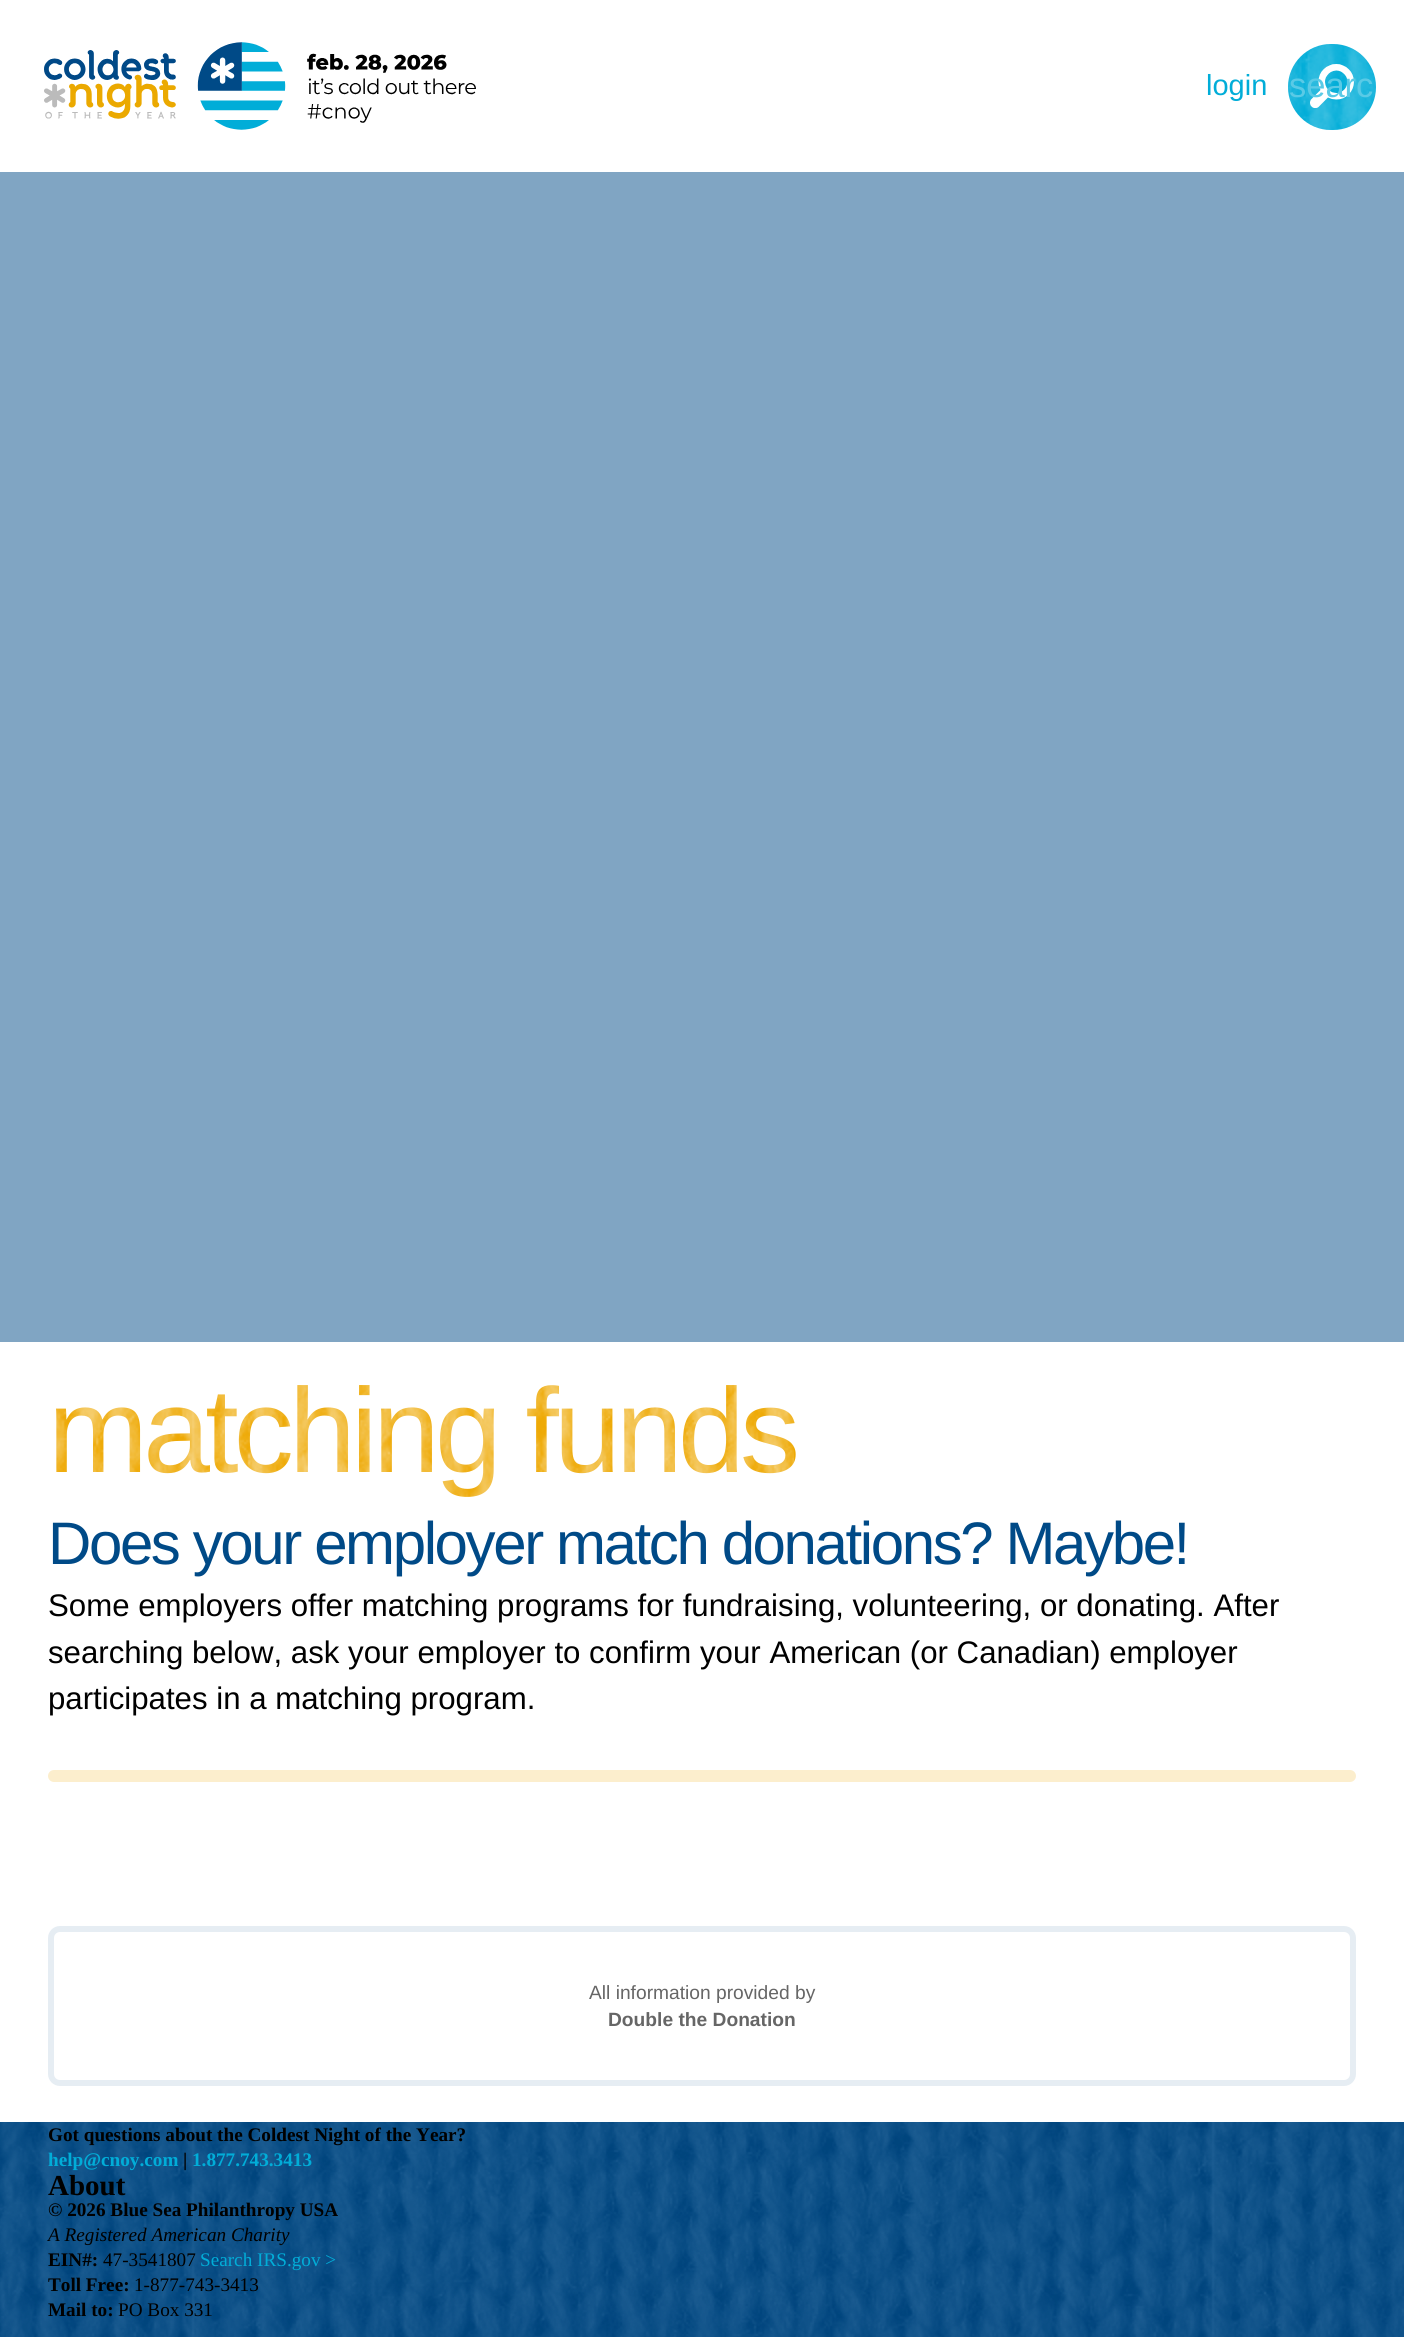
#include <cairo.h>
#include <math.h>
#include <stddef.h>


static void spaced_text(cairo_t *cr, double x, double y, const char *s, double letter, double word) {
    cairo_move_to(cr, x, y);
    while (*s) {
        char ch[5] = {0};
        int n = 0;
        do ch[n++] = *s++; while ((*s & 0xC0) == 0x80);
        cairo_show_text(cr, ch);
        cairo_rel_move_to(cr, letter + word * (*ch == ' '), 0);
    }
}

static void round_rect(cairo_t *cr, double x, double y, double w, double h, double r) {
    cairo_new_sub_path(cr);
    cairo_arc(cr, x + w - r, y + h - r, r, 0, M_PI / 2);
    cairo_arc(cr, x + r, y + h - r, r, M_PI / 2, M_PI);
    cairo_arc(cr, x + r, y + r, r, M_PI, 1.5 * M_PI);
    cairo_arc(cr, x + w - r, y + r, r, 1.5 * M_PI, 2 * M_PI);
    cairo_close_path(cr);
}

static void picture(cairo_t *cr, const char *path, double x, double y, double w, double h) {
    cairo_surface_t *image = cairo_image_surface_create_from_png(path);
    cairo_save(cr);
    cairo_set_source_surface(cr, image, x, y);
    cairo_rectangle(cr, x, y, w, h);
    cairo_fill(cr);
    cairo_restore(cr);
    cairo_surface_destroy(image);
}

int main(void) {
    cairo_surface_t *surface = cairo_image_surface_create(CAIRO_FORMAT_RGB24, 1404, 2337);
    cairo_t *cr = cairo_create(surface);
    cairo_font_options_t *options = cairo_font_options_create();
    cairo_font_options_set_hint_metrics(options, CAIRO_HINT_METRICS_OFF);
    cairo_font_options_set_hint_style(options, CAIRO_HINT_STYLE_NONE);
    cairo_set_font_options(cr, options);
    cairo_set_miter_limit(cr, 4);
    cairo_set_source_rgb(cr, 0, 0.29, 0.529);
    cairo_paint(cr);
    picture(cr, "img1.png", 0, 2122, 1404, 215);
    cairo_set_source_rgb(cr, 1, 1, 1);
    cairo_rectangle(cr, 0, 0, 1404, 172);
    cairo_fill(cr);
    picture(cr, "img2.png", 44, 42, 432, 88);
    cairo_select_font_face(cr, "Liberation Sans", CAIRO_FONT_SLANT_NORMAL, CAIRO_FONT_WEIGHT_NORMAL);
    cairo_set_font_size(cr, 29);
    cairo_set_source_rgb(cr, 0.004, 0.678, 0.847);
    cairo_move_to(cr, 1206, 95);
    cairo_show_text(cr, "login");
    round_rect(cr, 1288, 44, 88, 86, 43);
    cairo_fill(cr);
    picture(cr, "img3.png", 1288, 44, 88, 86);
    cairo_set_font_size(cr, 34.5);
    cairo_set_source_rgb(cr, 0.353, 0.792, 0.902);
    cairo_move_to(cr, 1289, 97);
    cairo_show_text(cr, "searc");
    cairo_set_source_rgb(cr, 0.502, 0.647, 0.765);
    cairo_rectangle(cr, 0, 172, 1404, 1170);
    cairo_fill(cr);
    cairo_set_source_rgb(cr, 1, 1, 1);
    cairo_rectangle(cr, 0, 1342, 1404, 780);
    cairo_fill(cr);
    cairo_set_font_size(cr, 120);
    cairo_set_source_rgb(cr, 0.933, 0.663, 0.016);
    spaced_text(cr, 48, 1472, "matching funds", -4.75, 0);
    picture(cr, "img4.png", 56, 1385, 738, 112);
    cairo_set_font_size(cr, 60);
    cairo_set_source_rgb(cr, 0, 0.29, 0.529);
    spaced_text(cr, 48, 1564, "Does your employer match donations? Maybe!", -2.4, 0);
    cairo_set_font_size(cr, 31.2);
    cairo_set_source_rgb(cr, 0, 0, 0);
    cairo_move_to(cr, 48, 1616);
    cairo_show_text(cr, "Some employers offer matching programs for fundraising, volunteering, or donating. After");
    cairo_move_to(cr, 48, 1663);
    cairo_show_text(cr, "searching below, ask your employer to confirm your American (or Canadian) employer");
    cairo_move_to(cr, 48, 1709);
    cairo_show_text(cr, "participates in a matching program.");
    cairo_set_source_rgb(cr, 0.988, 0.933, 0.804);
    round_rect(cr, 48, 1770, 1308, 12, 6);
    cairo_fill(cr);
    round_rect(cr, 51, 1929, 1302, 154, 9);
    cairo_set_source_rgb(cr, 0.902, 0.929, 0.953);
    cairo_set_line_width(cr, 6);
    cairo_stroke(cr);
    cairo_set_font_size(cr, 19.2);
    cairo_set_source_rgb(cr, 0.4, 0.4, 0.4);
    cairo_move_to(cr, 589, 1999);
    cairo_show_text(cr, "All information provided by");
    cairo_select_font_face(cr, "Liberation Sans", CAIRO_FONT_SLANT_NORMAL, CAIRO_FONT_WEIGHT_BOLD);
    cairo_move_to(cr, 608, 2026);
    cairo_show_text(cr, "Double the Donation");
    cairo_select_font_face(cr, "Liberation Serif", CAIRO_FONT_SLANT_NORMAL, CAIRO_FONT_WEIGHT_BOLD);
    cairo_set_source_rgb(cr, 0, 0, 0);
    cairo_move_to(cr, 48, 2141);
    cairo_show_text(cr, "Got questions about the Coldest Night of the Year?");
    cairo_set_source_rgb(cr, 0.004, 0.678, 0.847);
    cairo_move_to(cr, 48, 2166);
    cairo_show_text(cr, "help@cnoy.com");
    cairo_set_source_rgb(cr, 0, 0, 0);
    cairo_move_to(cr, 183, 2166);
    cairo_show_text(cr, "|");
    cairo_set_source_rgb(cr, 0.004, 0.678, 0.847);
    cairo_move_to(cr, 192, 2166);
    cairo_show_text(cr, "1.877.743.3413");
    cairo_set_font_size(cr, 29);
    cairo_set_source_rgb(cr, 0, 0, 0);
    cairo_move_to(cr, 48, 2195);
    cairo_show_text(cr, "About");
    cairo_set_font_size(cr, 19.2);
    cairo_move_to(cr, 48, 2216);
    cairo_show_text(cr, "© 2026 Blue Sea Philanthropy USA");
    cairo_select_font_face(cr, "Liberation Serif", CAIRO_FONT_SLANT_ITALIC, CAIRO_FONT_WEIGHT_NORMAL);
    cairo_move_to(cr, 48, 2241);
    cairo_show_text(cr, "A Registered American Charity");
    cairo_select_font_face(cr, "Liberation Serif", CAIRO_FONT_SLANT_NORMAL, CAIRO_FONT_WEIGHT_BOLD);
    cairo_move_to(cr, 48, 2266);
    cairo_show_text(cr, "EIN#:");
    cairo_select_font_face(cr, "Liberation Serif", CAIRO_FONT_SLANT_NORMAL, CAIRO_FONT_WEIGHT_NORMAL);
    cairo_move_to(cr, 103, 2266);
    cairo_show_text(cr, "47-3541807");
    cairo_set_source_rgb(cr, 0.004, 0.678, 0.847);
    cairo_move_to(cr, 200, 2266);
    cairo_show_text(cr, "Search IRS.gov >");
    cairo_select_font_face(cr, "Liberation Serif", CAIRO_FONT_SLANT_NORMAL, CAIRO_FONT_WEIGHT_BOLD);
    cairo_set_source_rgb(cr, 0, 0, 0);
    cairo_move_to(cr, 48, 2291);
    cairo_show_text(cr, "Toll Free:");
    cairo_select_font_face(cr, "Liberation Serif", CAIRO_FONT_SLANT_NORMAL, CAIRO_FONT_WEIGHT_NORMAL);
    cairo_move_to(cr, 134, 2291);
    cairo_show_text(cr, "1-877-743-3413");
    cairo_select_font_face(cr, "Liberation Serif", CAIRO_FONT_SLANT_NORMAL, CAIRO_FONT_WEIGHT_BOLD);
    cairo_move_to(cr, 48, 2316);
    cairo_show_text(cr, "Mail to:");
    cairo_select_font_face(cr, "Liberation Serif", CAIRO_FONT_SLANT_NORMAL, CAIRO_FONT_WEIGHT_NORMAL);
    cairo_move_to(cr, 118, 2316);
    cairo_show_text(cr, "PO Box 331");
    cairo_surface_write_to_png(surface, "page.png");
    cairo_font_options_destroy(options);
    cairo_destroy(cr);
    cairo_surface_destroy(surface);
    return 0;
}
